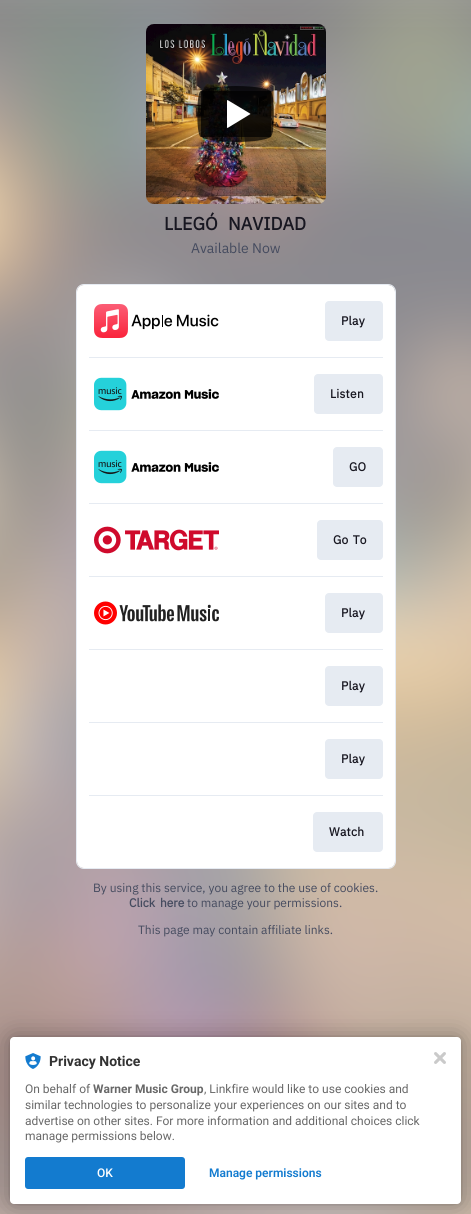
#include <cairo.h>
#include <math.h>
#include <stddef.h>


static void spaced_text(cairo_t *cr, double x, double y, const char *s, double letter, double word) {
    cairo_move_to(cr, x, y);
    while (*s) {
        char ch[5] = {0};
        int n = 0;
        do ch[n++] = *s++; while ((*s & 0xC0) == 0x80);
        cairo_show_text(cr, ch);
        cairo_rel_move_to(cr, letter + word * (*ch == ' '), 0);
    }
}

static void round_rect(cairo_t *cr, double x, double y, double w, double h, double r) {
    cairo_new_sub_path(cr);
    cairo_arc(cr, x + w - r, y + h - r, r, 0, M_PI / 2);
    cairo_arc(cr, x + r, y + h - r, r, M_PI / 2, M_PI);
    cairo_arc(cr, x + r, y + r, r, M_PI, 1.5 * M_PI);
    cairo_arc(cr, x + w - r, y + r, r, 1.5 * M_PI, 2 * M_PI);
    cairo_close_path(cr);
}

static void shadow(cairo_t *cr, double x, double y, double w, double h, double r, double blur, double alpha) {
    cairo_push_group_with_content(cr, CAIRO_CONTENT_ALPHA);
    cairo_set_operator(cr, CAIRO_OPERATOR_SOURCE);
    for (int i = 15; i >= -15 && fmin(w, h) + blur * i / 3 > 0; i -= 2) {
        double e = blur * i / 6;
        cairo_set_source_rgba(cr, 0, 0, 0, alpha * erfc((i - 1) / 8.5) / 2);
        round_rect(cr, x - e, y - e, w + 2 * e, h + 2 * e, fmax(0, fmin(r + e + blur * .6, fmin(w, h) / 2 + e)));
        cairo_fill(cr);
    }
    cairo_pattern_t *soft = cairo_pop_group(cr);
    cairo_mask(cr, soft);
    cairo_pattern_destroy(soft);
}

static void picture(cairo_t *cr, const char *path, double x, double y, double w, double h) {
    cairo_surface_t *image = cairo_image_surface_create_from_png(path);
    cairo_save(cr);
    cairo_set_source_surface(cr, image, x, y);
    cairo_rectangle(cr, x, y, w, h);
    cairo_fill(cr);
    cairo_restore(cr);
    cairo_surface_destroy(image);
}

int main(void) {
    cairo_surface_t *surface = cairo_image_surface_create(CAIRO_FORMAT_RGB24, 471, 1214);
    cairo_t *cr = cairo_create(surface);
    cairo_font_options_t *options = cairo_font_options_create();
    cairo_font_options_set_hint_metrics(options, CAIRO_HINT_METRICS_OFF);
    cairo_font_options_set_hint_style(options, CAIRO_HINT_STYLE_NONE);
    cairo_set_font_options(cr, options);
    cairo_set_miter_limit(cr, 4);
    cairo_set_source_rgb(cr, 1, 1, 1);
    cairo_paint(cr);
    picture(cr, "img1.png", 0, 0, 471, 1214);
    picture(cr, "img2.png", 146, 24, 180, 180);
    cairo_set_source_rgba(cr, 0, 0, 0, 0.7);
    cairo_new_path(cr);
    cairo_move_to(cr, 236, 86);
    cairo_curve_to(cr, 255, 86, 271, 89, 271, 92);
    cairo_line_to(cr, 271, 136);
    cairo_curve_to(cr, 271, 139, 255, 142, 236, 142);
    cairo_curve_to(cr, 217, 142, 201, 139, 201, 136);
    cairo_line_to(cr, 201, 92);
    cairo_curve_to(cr, 201, 89, 217, 86, 236, 86);
    cairo_close_path(cr);
    cairo_fill(cr);
    cairo_new_path(cr);
    cairo_move_to(cr, 201, 91);
    cairo_line_to(cr, 270, 91);
    cairo_curve_to(cr, 275, 91, 274, 125, 273, 130);
    cairo_curve_to(cr, 273, 131, 272, 137, 270, 137);
    cairo_line_to(cr, 201, 137);
    cairo_curve_to(cr, 196, 137, 196, 91, 201, 91);
    cairo_close_path(cr);
    cairo_fill(cr);
    cairo_set_source_rgb(cr, 1, 1, 1);
    cairo_new_path(cr);
    cairo_move_to(cr, 250, 113.5);
    cairo_line_to(cr, 227.5, 100);
    cairo_line_to(cr, 227, 100.5);
    cairo_line_to(cr, 227, 127.5);
    cairo_line_to(cr, 227.5, 128);
    cairo_line_to(cr, 250.5, 114);
    cairo_close_path(cr);
    cairo_fill(cr);
    cairo_select_font_face(cr, "IBM Plex Sans", CAIRO_FONT_SLANT_NORMAL, CAIRO_FONT_WEIGHT_BOLD);
    cairo_set_font_size(cr, 18);
    cairo_set_source_rgb(cr, 0.094, 0.09, 0.129);
    spaced_text(cr, 164, 230, "LLEGÓ NAVIDAD", 0, 6);
    cairo_select_font_face(cr, "IBM Plex Sans", CAIRO_FONT_SLANT_NORMAL, CAIRO_FONT_WEIGHT_NORMAL);
    cairo_set_font_size(cr, 14);
    cairo_set_source_rgb(cr, 0.271, 0.294, 0.373);
    cairo_move_to(cr, 191, 253);
    cairo_show_text(cr, "Available Now");
    round_rect(cr, 76.5, 284.5, 319, 584, 7.5);
    cairo_set_source_rgb(cr, 0.902, 0.918, 0.949);
    cairo_set_line_width(cr, 1);
    cairo_stroke(cr);
    cairo_set_source_rgb(cr, 1, 1, 1);
    round_rect(cr, 77, 285, 318, 583, 7);
    cairo_fill(cr);
    picture(cr, "img3.png", 94, 304, 125, 34);
    cairo_set_source_rgb(cr, 0.902, 0.918, 0.949);
    round_rect(cr, 325, 301, 58, 40, 4);
    cairo_fill(cr);
    cairo_select_font_face(cr, "IBM Plex Sans", CAIRO_FONT_SLANT_NORMAL, CAIRO_FONT_WEIGHT_BOLD);
    cairo_set_font_size(cr, 12);
    cairo_set_source_rgb(cr, 0.094, 0.09, 0.129);
    spaced_text(cr, 341, 325, "Play", 0.25, 0);
    cairo_set_source_rgb(cr, 0.902, 0.918, 0.949);
    cairo_rectangle(cr, 89, 357, 294, 1);
    cairo_fill(cr);
    picture(cr, "img4.png", 94, 377, 125, 34);
    round_rect(cr, 314, 374, 69, 40, 4);
    cairo_fill(cr);
    cairo_set_source_rgb(cr, 0.094, 0.09, 0.129);
    spaced_text(cr, 330, 398, "Listen", 0.25, 0);
    cairo_set_source_rgb(cr, 0.902, 0.918, 0.949);
    cairo_rectangle(cr, 89, 430, 294, 1);
    cairo_fill(cr);
    picture(cr, "img4.png", 94, 450, 125, 34);
    round_rect(cr, 333, 447, 50, 40, 4);
    cairo_fill(cr);
    cairo_set_source_rgb(cr, 0.094, 0.09, 0.129);
    spaced_text(cr, 349, 471, "GO", 0.25, 0);
    cairo_set_source_rgb(cr, 0.902, 0.918, 0.949);
    cairo_rectangle(cr, 89, 503, 294, 1);
    cairo_fill(cr);
    picture(cr, "img5.png", 94, 526, 125, 28);
    round_rect(cr, 317, 520, 66, 40, 4);
    cairo_fill(cr);
    cairo_set_source_rgb(cr, 0.094, 0.09, 0.129);
    spaced_text(cr, 333, 544, "Go To", 0.25, 1);
    cairo_set_source_rgb(cr, 0.902, 0.918, 0.949);
    cairo_rectangle(cr, 89, 576, 294, 1);
    cairo_fill(cr);
    picture(cr, "img6.png", 94, 601, 125, 24);
    round_rect(cr, 325, 593, 58, 40, 4);
    cairo_fill(cr);
    cairo_set_source_rgb(cr, 0.094, 0.09, 0.129);
    spaced_text(cr, 341, 617, "Play", 0.25, 0);
    cairo_set_source_rgb(cr, 0.902, 0.918, 0.949);
    cairo_rectangle(cr, 89, 649, 294, 1);
    cairo_fill(cr);
    round_rect(cr, 325, 666, 58, 40, 4);
    cairo_fill(cr);
    cairo_set_source_rgb(cr, 0.094, 0.09, 0.129);
    spaced_text(cr, 341, 690, "Play", 0.25, 0);
    cairo_set_source_rgb(cr, 0.902, 0.918, 0.949);
    cairo_rectangle(cr, 89, 722, 294, 1);
    cairo_fill(cr);
    round_rect(cr, 325, 739, 58, 40, 4);
    cairo_fill(cr);
    cairo_set_source_rgb(cr, 0.094, 0.09, 0.129);
    spaced_text(cr, 341, 763, "Play", 0.25, 0);
    cairo_set_source_rgb(cr, 0.902, 0.918, 0.949);
    cairo_rectangle(cr, 89, 795, 294, 1);
    cairo_fill(cr);
    round_rect(cr, 313, 812, 70, 40, 4);
    cairo_fill(cr);
    cairo_set_source_rgb(cr, 0.094, 0.09, 0.129);
    spaced_text(cr, 329, 836, "Watch", 0.25, 0);
    cairo_select_font_face(cr, "IBM Plex Sans", CAIRO_FONT_SLANT_NORMAL, CAIRO_FONT_WEIGHT_NORMAL);
    cairo_set_source_rgb(cr, 0.271, 0.294, 0.373);
    cairo_move_to(cr, 93, 892);
    cairo_show_text(cr, "By using this service, you agree to the use of cookies.");
    cairo_select_font_face(cr, "IBM Plex Sans", CAIRO_FONT_SLANT_NORMAL, CAIRO_FONT_WEIGHT_BOLD);
    spaced_text(cr, 129, 907, "Click here", 0, 2);
    cairo_select_font_face(cr, "IBM Plex Sans", CAIRO_FONT_SLANT_NORMAL, CAIRO_FONT_WEIGHT_NORMAL);
    cairo_move_to(cr, 187, 907);
    cairo_show_text(cr, "to manage your permissions.");
    cairo_move_to(cr, 138, 934);
    cairo_show_text(cr, "This page may contain affiliate links.");
    cairo_set_source_rgb(cr, 0, 0, 0);
    shadow(cr, 10, 1037, 451, 167, 4, 2, 0.12);
    shadow(cr, 10, 1037, 451, 167, 4, 12, 0.3);
    cairo_set_source_rgb(cr, 1, 1, 1);
    round_rect(cr, 10, 1037, 451, 167, 4);
    cairo_fill(cr);
    picture(cr, "img7.png", 25, 1053, 16, 16);
    cairo_select_font_face(cr, "Roboto", CAIRO_FONT_SLANT_NORMAL, CAIRO_FONT_WEIGHT_BOLD);
    cairo_set_font_size(cr, 14);
    cairo_set_source_rgb(cr, 0.196, 0.196, 0.196);
    cairo_move_to(cr, 49, 1066);
    cairo_show_text(cr, "Privacy Notice");
    cairo_select_font_face(cr, "Roboto", CAIRO_FONT_SLANT_NORMAL, CAIRO_FONT_WEIGHT_NORMAL);
    cairo_set_font_size(cr, 12);
    cairo_set_source_rgb(cr, 0.408, 0.408, 0.408);
    cairo_move_to(cr, 25, 1093);
    cairo_show_text(cr, "On behalf of");
    cairo_select_font_face(cr, "Roboto", CAIRO_FONT_SLANT_NORMAL, CAIRO_FONT_WEIGHT_BOLD);
    cairo_move_to(cr, 93, 1093);
    cairo_show_text(cr, "Warner Music Group");
    cairo_select_font_face(cr, "Roboto", CAIRO_FONT_SLANT_NORMAL, CAIRO_FONT_WEIGHT_NORMAL);
    cairo_move_to(cr, 204, 1093);
    cairo_show_text(cr, ", Linkfire would like to use cookies and");
    cairo_move_to(cr, 25, 1109);
    cairo_show_text(cr, "similar technologies to personalize your experiences on our sites and to");
    cairo_move_to(cr, 25, 1125);
    cairo_show_text(cr, "advertise on other sites. For more information and additional choices click");
    cairo_move_to(cr, 25, 1140);
    cairo_show_text(cr, "manage permissions below.");
    cairo_set_source_rgb(cr, 0.075, 0.482, 0.812);
    round_rect(cr, 25, 1157, 160, 32, 3);
    cairo_fill(cr);
    cairo_select_font_face(cr, "Roboto Medium", CAIRO_FONT_SLANT_NORMAL, CAIRO_FONT_WEIGHT_NORMAL);
    cairo_set_source_rgb(cr, 1, 1, 1);
    cairo_move_to(cr, 97, 1177);
    cairo_show_text(cr, "OK");
    cairo_select_font_face(cr, "Roboto SemiBold", CAIRO_FONT_SLANT_NORMAL, CAIRO_FONT_WEIGHT_NORMAL);
    cairo_set_source_rgb(cr, 0.075, 0.482, 0.812);
    cairo_move_to(cr, 209, 1177);
    cairo_show_text(cr, "Manage permissions");
    picture(cr, "img8.png", 434, 1052, 12, 12);
    cairo_surface_write_to_png(surface, "page.png");
    cairo_font_options_destroy(options);
    cairo_destroy(cr);
    cairo_surface_destroy(surface);
    return 0;
}
